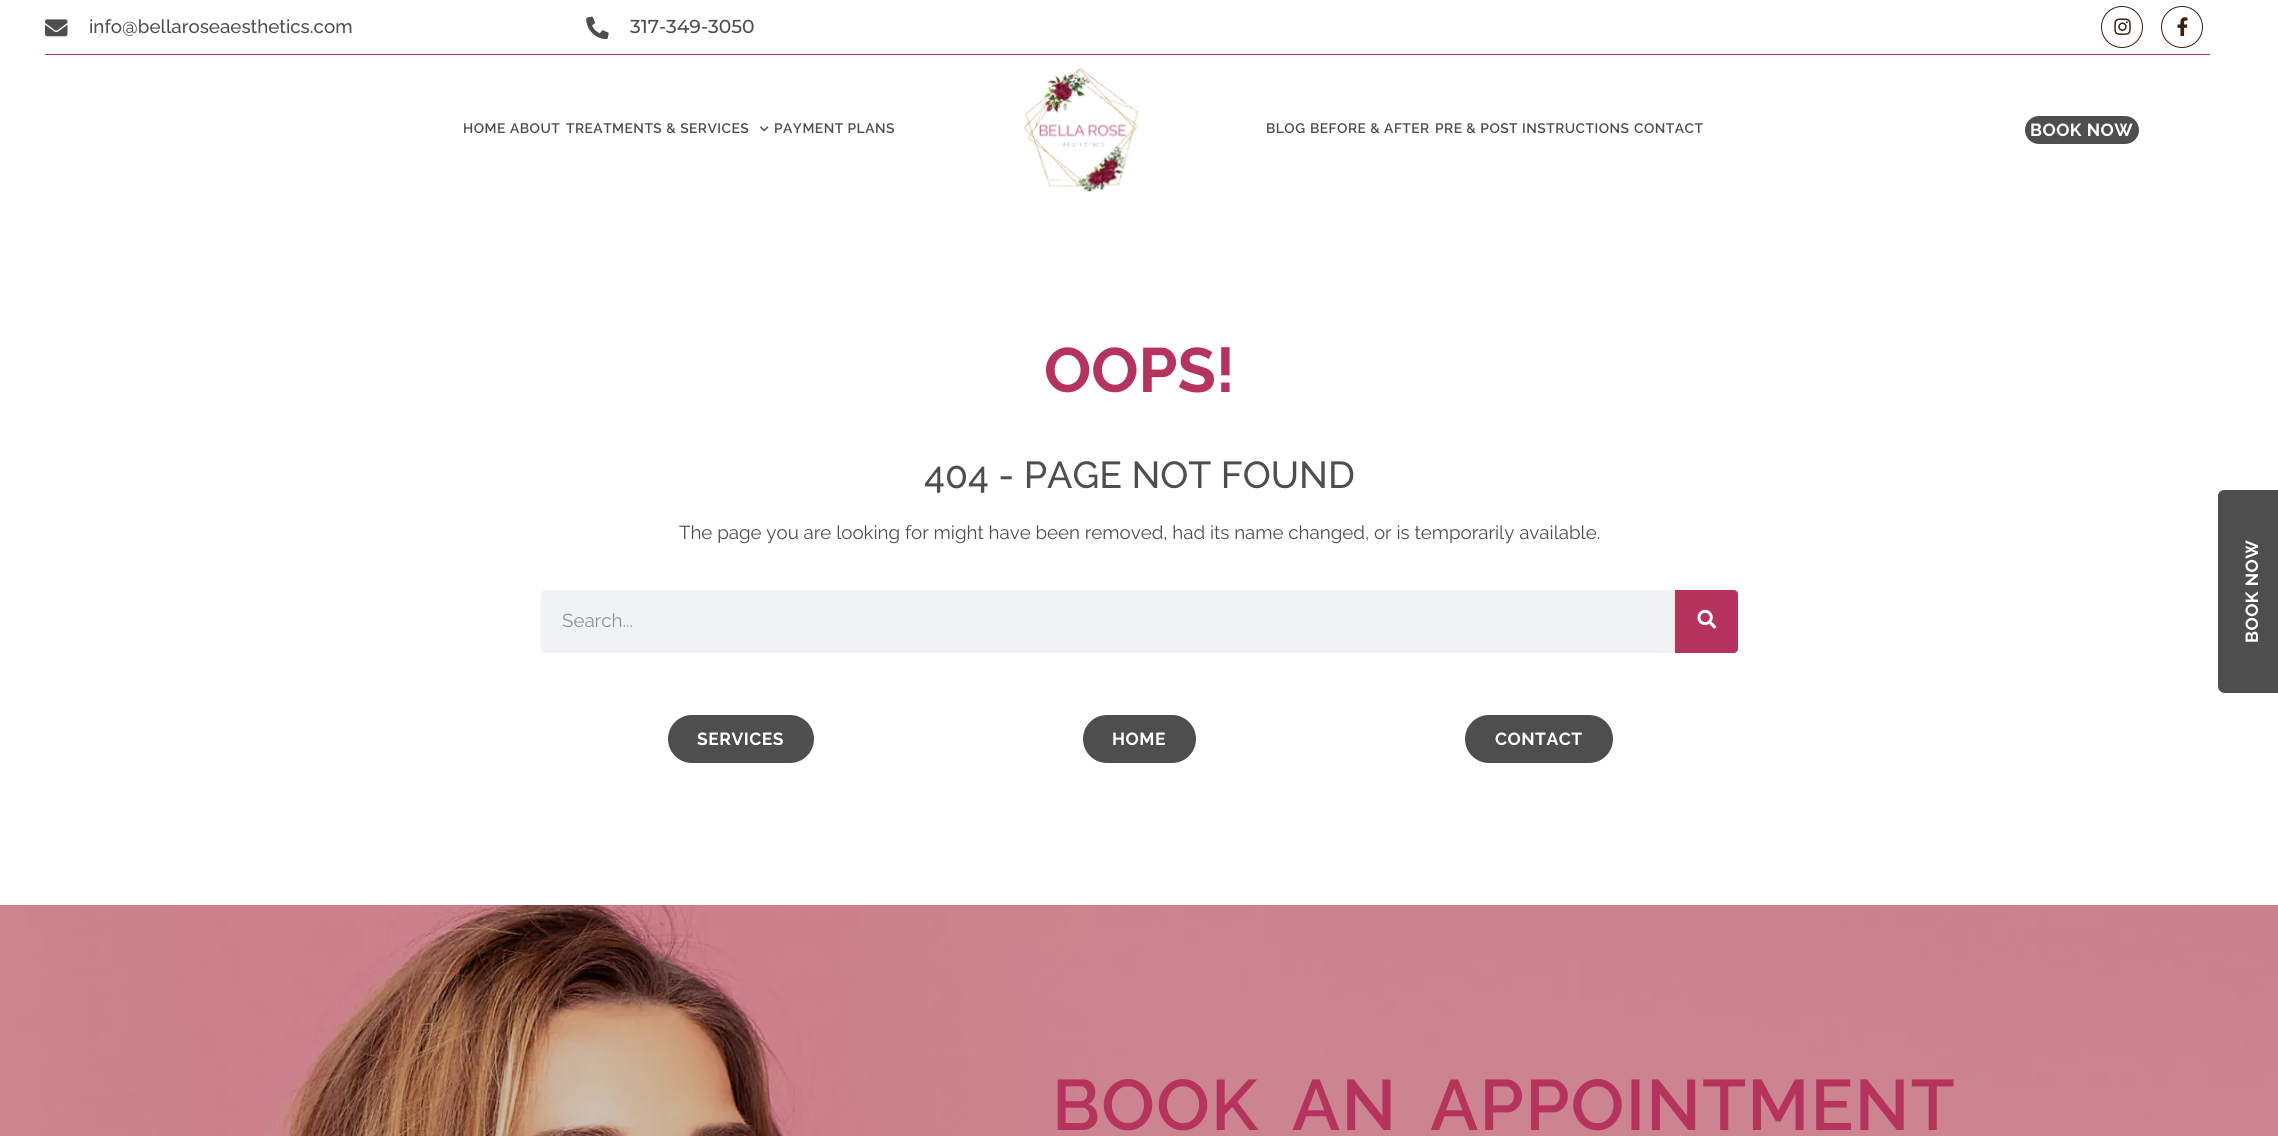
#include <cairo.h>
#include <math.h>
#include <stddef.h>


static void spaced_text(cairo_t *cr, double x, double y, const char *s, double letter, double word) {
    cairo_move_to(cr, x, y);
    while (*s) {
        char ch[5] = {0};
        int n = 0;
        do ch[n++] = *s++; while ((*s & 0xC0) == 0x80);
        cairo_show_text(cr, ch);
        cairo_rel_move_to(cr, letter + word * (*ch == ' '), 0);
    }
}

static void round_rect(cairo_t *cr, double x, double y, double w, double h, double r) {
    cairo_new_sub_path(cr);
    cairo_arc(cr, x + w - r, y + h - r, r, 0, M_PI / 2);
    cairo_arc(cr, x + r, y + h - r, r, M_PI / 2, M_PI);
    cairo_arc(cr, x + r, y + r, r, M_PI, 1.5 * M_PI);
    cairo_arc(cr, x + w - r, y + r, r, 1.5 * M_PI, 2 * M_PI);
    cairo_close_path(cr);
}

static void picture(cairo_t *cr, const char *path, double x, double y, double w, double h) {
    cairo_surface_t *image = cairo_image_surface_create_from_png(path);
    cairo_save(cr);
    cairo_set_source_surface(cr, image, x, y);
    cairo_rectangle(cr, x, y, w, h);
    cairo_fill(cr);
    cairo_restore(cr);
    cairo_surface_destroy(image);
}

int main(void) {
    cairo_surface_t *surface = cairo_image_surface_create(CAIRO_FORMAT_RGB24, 2278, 1136);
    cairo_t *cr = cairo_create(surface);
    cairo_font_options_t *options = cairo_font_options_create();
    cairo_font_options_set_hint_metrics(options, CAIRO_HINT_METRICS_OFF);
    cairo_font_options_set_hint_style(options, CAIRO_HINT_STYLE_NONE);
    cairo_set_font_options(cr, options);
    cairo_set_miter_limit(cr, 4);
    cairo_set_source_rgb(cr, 1, 1, 1);
    cairo_paint(cr);
    cairo_set_source_rgb(cr, 0.71, 0.2, 0.365);
    cairo_rectangle(cr, 45, 54, 2165, 1);
    cairo_fill(cr);
    picture(cr, "img1.png", 45, 19, 23, 18);
    cairo_select_font_face(cr, "Raleway Medium", CAIRO_FONT_SLANT_NORMAL, CAIRO_FONT_WEIGHT_NORMAL);
    cairo_set_font_size(cr, 18.75);
    cairo_set_source_rgb(cr, 0.306, 0.306, 0.306);
    cairo_move_to(cr, 89, 33);
    cairo_show_text(cr, "info@bellaroseaesthetics.com");
    picture(cr, "img2.png", 586, 16, 23, 24);
    cairo_select_font_face(cr, "Montserrat Medium", CAIRO_FONT_SLANT_NORMAL, CAIRO_FONT_WEIGHT_NORMAL);
    cairo_move_to(cr, 630, 33);
    cairo_show_text(cr, "317-349-3050");
    cairo_new_path(cr);
    cairo_arc(cr, 2122, 27, 20.5, 0, 2 * M_PI);
    cairo_set_source_rgb(cr, 0.22, 0.125, 0.075);
    cairo_set_line_width(cr, 1);
    cairo_stroke(cr);
    picture(cr, "img3.png", 2114, 18, 17, 17);
    cairo_arc(cr, 2182, 27, 20.5, 0, 2 * M_PI);
    cairo_stroke(cr);
    picture(cr, "img4.png", 2177, 17, 11, 20);
    cairo_select_font_face(cr, "Raleway SemiBold", CAIRO_FONT_SLANT_NORMAL, CAIRO_FONT_WEIGHT_NORMAL);
    cairo_set_font_size(cr, 13.75);
    cairo_set_source_rgb(cr, 0.306, 0.306, 0.306);
    spaced_text(cr, 463, 133, "HOME", 0.5, 0);
    spaced_text(cr, 510, 133, "ABOUT", 0.5, 0);
    spaced_text(cr, 566, 133, "TREATMENTS & SERVICES", 0.5, 0);
    picture(cr, "img5.png", 760, 126, 9, 6);
    spaced_text(cr, 774, 133, "PAYMENT PLANS", 0.5, 0);
    picture(cr, "img6.png", 1023, 67, 116, 125);
    spaced_text(cr, 1266, 133, "BLOG", 0.5, 0);
    spaced_text(cr, 1310, 133, "BEFORE & AFTER", 0.5, 0);
    spaced_text(cr, 1435, 133, "PRE & POST INSTRUCTIONS", 0.5, 0);
    spaced_text(cr, 1634, 133, "CONTACT", 0.5, 0);
    round_rect(cr, 2025, 116, 114, 28, 14);
    cairo_fill(cr);
    cairo_select_font_face(cr, "Raleway", CAIRO_FONT_SLANT_NORMAL, CAIRO_FONT_WEIGHT_BOLD);
    cairo_set_font_size(cr, 17.5);
    cairo_set_source_rgb(cr, 1, 1, 1);
    spaced_text(cr, 2030, 136, "BOOK NOW", 0.5, 0);
    cairo_set_source_rgb(cr, 0.306, 0.306, 0.306);
    cairo_new_path(cr);
    cairo_move_to(cr, 2218, 686);
    cairo_line_to(cr, 2218, 496);
    cairo_curve_to(cr, 2218, 492, 2221, 490, 2225, 490);
    cairo_line_to(cr, 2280, 490);
    cairo_curve_to(cr, 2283, 490, 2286, 492, 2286, 496);
    cairo_line_to(cr, 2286, 686);
    cairo_curve_to(cr, 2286, 690, 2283, 693, 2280, 693);
    cairo_line_to(cr, 2225, 693);
    cairo_curve_to(cr, 2221, 693, 2218, 690, 2218, 686);
    cairo_close_path(cr);
    cairo_fill(cr);
    cairo_set_source_rgb(cr, 1, 1, 1);
    cairo_save(cr);
    cairo_translate(cr, 2258, 643);
    cairo_rotate(cr, -90 * M_PI / 180);
    spaced_text(cr, 0, 0, "BOOK NOW", 0.5, 0);
    cairo_restore(cr);
    cairo_set_font_size(cr, 62.5);
    cairo_set_source_rgb(cr, 0.71, 0.2, 0.365);
    cairo_move_to(cr, 1044, 392);
    cairo_show_text(cr, "OOPS!");
    cairo_select_font_face(cr, "Raleway Medium", CAIRO_FONT_SLANT_NORMAL, CAIRO_FONT_WEIGHT_NORMAL);
    cairo_set_font_size(cr, 37.5);
    cairo_set_source_rgb(cr, 0.306, 0.306, 0.306);
    cairo_move_to(cr, 924, 488);
    cairo_show_text(cr, "404 - PAGE NOT FOUND");
    cairo_select_font_face(cr, "Raleway", CAIRO_FONT_SLANT_NORMAL, CAIRO_FONT_WEIGHT_NORMAL);
    cairo_set_font_size(cr, 18.75);
    cairo_move_to(cr, 679, 539);
    cairo_show_text(cr, "The page you are looking for might have been removed, had its name changed, or is temporarily available.");
    cairo_set_source_rgb(cr, 0.945, 0.949, 0.953);
    round_rect(cr, 541, 590, 1197, 63, 4);
    cairo_fill(cr);
    cairo_set_source_rgb(cr, 0.561, 0.565, 0.565);
    cairo_move_to(cr, 562, 627);
    cairo_show_text(cr, "Search...");
    cairo_set_source_rgb(cr, 0.71, 0.2, 0.365);
    cairo_new_path(cr);
    cairo_move_to(cr, 1675, 590);
    cairo_line_to(cr, 1734, 590);
    cairo_curve_to(cr, 1736, 590, 1738, 592, 1738, 594);
    cairo_line_to(cr, 1738, 649);
    cairo_curve_to(cr, 1738, 651, 1736, 653, 1734, 653);
    cairo_line_to(cr, 1675, 653);
    cairo_close_path(cr);
    cairo_fill(cr);
    picture(cr, "img7.png", 1697, 609, 20, 20);
    cairo_set_source_rgb(cr, 0.306, 0.306, 0.306);
    round_rect(cr, 668, 715, 146, 48, 24);
    cairo_fill(cr);
    cairo_select_font_face(cr, "Raleway", CAIRO_FONT_SLANT_NORMAL, CAIRO_FONT_WEIGHT_BOLD);
    cairo_set_font_size(cr, 17.5);
    cairo_set_source_rgb(cr, 1, 1, 1);
    spaced_text(cr, 697, 745, "SERVICES", 0.5, 0);
    cairo_set_source_rgb(cr, 0.306, 0.306, 0.306);
    round_rect(cr, 1083, 715, 113, 48, 24);
    cairo_fill(cr);
    cairo_set_source_rgb(cr, 1, 1, 1);
    spaced_text(cr, 1112, 745, "HOME", 0.5, 0);
    cairo_set_source_rgb(cr, 0.306, 0.306, 0.306);
    round_rect(cr, 1465, 715, 148, 48, 24);
    cairo_fill(cr);
    cairo_set_source_rgb(cr, 1, 1, 1);
    spaced_text(cr, 1495, 745, "CONTACT", 0.5, 0);
    picture(cr, "img8.png", 0, 905, 2278, 231);
    cairo_select_font_face(cr, "Raleway SemiBold", CAIRO_FONT_SLANT_NORMAL, CAIRO_FONT_WEIGHT_NORMAL);
    cairo_set_font_size(cr, 71.25);
    cairo_set_source_rgb(cr, 0.71, 0.2, 0.365);
    spaced_text(cr, 1052, 1130, "BOOK AN APPOINTMENT", 1.25, 14);
    cairo_surface_write_to_png(surface, "page.png");
    cairo_font_options_destroy(options);
    cairo_destroy(cr);
    cairo_surface_destroy(surface);
    return 0;
}
